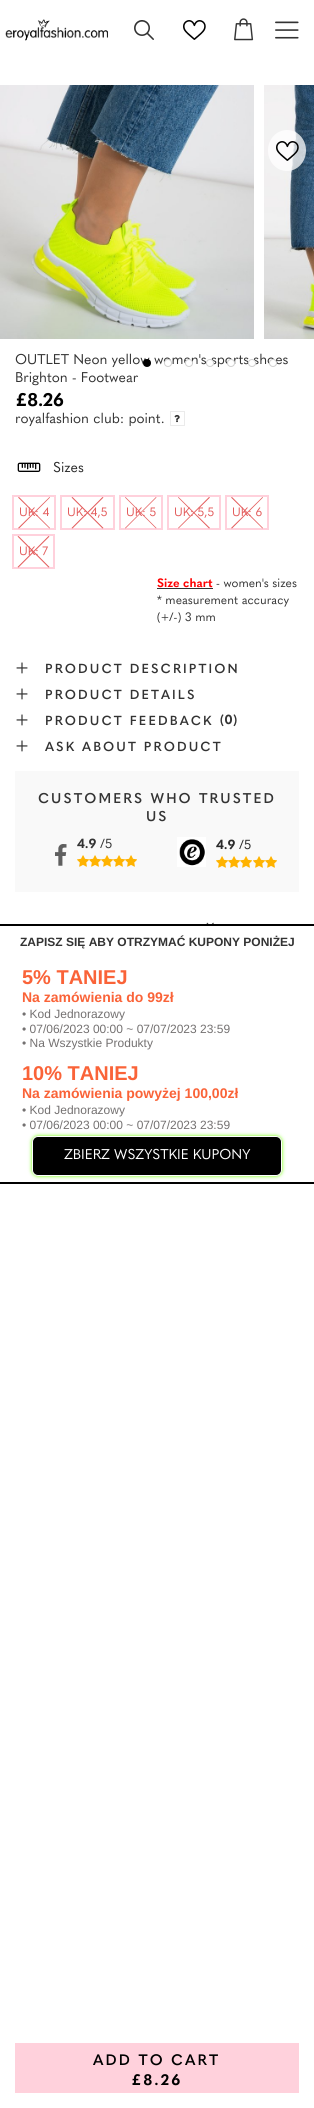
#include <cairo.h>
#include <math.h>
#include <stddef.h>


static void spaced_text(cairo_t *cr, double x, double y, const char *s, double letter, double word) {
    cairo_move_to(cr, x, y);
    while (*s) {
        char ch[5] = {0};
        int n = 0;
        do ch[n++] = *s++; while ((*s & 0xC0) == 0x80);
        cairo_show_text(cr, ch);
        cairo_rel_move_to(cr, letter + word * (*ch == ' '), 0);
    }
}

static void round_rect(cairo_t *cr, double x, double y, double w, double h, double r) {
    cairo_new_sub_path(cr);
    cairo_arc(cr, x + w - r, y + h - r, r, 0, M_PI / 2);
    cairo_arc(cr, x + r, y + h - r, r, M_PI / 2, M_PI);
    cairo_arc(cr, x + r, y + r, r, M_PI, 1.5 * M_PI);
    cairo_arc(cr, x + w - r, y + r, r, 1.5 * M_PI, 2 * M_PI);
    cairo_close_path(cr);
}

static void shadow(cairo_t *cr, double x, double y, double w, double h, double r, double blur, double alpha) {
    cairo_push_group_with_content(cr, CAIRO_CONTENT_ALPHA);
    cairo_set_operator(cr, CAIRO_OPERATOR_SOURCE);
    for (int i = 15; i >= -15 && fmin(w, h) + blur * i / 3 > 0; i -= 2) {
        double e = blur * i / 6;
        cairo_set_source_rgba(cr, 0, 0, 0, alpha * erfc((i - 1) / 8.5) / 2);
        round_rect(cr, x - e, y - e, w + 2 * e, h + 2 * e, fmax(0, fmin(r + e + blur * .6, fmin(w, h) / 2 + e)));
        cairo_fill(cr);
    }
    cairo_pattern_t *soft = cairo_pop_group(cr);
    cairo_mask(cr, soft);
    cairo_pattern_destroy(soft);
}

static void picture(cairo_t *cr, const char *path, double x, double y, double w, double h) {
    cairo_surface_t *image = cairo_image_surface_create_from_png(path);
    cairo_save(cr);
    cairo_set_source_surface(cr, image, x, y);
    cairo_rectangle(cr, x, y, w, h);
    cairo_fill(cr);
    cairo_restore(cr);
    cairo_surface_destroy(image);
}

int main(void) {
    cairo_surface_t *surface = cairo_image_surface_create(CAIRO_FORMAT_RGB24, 314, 2108);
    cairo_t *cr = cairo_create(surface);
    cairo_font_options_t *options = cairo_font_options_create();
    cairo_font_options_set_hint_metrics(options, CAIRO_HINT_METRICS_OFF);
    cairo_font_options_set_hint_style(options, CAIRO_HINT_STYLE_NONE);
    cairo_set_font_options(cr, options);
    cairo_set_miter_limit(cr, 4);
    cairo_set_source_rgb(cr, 1, 1, 1);
    cairo_paint(cr);
    picture(cr, "img1.png", 5, 19, 103, 22);
    picture(cr, "img2.png", 134, 20, 20, 20);
    picture(cr, "img3.png", 183, 20, 23, 20);
    picture(cr, "img4.png", 234, 18, 20, 23);
    picture(cr, "img5.png", 275, 21, 24, 18);
    picture(cr, "img8.png", 264, 85, 50, 254);
    cairo_set_source_rgba(cr, 1, 1, 1, 0.75);
    cairo_new_path(cr);
    cairo_move_to(cr, 287, 130);
    cairo_curve_to(cr, 297.5, 130, 306, 139, 306, 150.5);
    cairo_curve_to(cr, 306, 162, 297.5, 171, 287, 171);
    cairo_curve_to(cr, 276.5, 171, 268, 162, 268, 150.5);
    cairo_curve_to(cr, 268, 139, 276.5, 130, 287, 130);
    cairo_close_path(cr);
    cairo_fill(cr);
    picture(cr, "img6.png", 276, 141, 23, 20);
    picture(cr, "img7.png", 0, 85, 254, 254);
    cairo_select_font_face(cr, "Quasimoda", CAIRO_FONT_SLANT_NORMAL, CAIRO_FONT_WEIGHT_NORMAL);
    cairo_set_font_size(cr, 14);
    cairo_set_source_rgb(cr, 0.2, 0.2, 0.2);
    cairo_move_to(cr, 15, 364);
    cairo_show_text(cr, "OUTLET Neon yellow women's sports shoes");
    cairo_set_source_rgb(cr, 0, 0, 0);
    cairo_new_path(cr);
    cairo_arc(cr, 147, 363, 4, 0, 2 * M_PI);
    cairo_fill(cr);
    cairo_set_source_rgb(cr, 1, 1, 1);
    cairo_arc(cr, 168, 363, 3.5, 0, 2 * M_PI);
    cairo_fill_preserve(cr);
    cairo_set_source_rgb(cr, 0.816, 0.816, 0.816);
    cairo_set_line_width(cr, 1);
    cairo_stroke(cr);
    cairo_set_source_rgb(cr, 1, 1, 1);
    cairo_arc(cr, 189, 363, 3.5, 0, 2 * M_PI);
    cairo_fill_preserve(cr);
    cairo_set_source_rgb(cr, 0.816, 0.816, 0.816);
    cairo_stroke(cr);
    cairo_set_source_rgb(cr, 1, 1, 1);
    cairo_arc(cr, 210, 363, 3.5, 0, 2 * M_PI);
    cairo_fill_preserve(cr);
    cairo_set_source_rgb(cr, 0.816, 0.816, 0.816);
    cairo_stroke(cr);
    cairo_set_source_rgb(cr, 1, 1, 1);
    cairo_arc(cr, 231, 363, 3.5, 0, 2 * M_PI);
    cairo_fill_preserve(cr);
    cairo_set_source_rgb(cr, 0.816, 0.816, 0.816);
    cairo_stroke(cr);
    cairo_set_source_rgb(cr, 1, 1, 1);
    cairo_arc(cr, 252, 363, 3.5, 0, 2 * M_PI);
    cairo_fill_preserve(cr);
    cairo_set_source_rgb(cr, 0.816, 0.816, 0.816);
    cairo_stroke(cr);
    cairo_set_source_rgb(cr, 1, 1, 1);
    cairo_arc(cr, 273, 363, 3.5, 0, 2 * M_PI);
    cairo_fill_preserve(cr);
    cairo_set_source_rgb(cr, 0.816, 0.816, 0.816);
    cairo_stroke(cr);
    cairo_set_source_rgb(cr, 0.2, 0.2, 0.2);
    cairo_move_to(cr, 15, 382);
    cairo_show_text(cr, "Brighton - Footwear");
    cairo_select_font_face(cr, "Quasimoda", CAIRO_FONT_SLANT_NORMAL, CAIRO_FONT_WEIGHT_BOLD);
    cairo_set_font_size(cr, 18);
    cairo_set_source_rgb(cr, 0, 0, 0);
    cairo_move_to(cr, 15, 406);
    cairo_show_text(cr, "£8.26");
    cairo_select_font_face(cr, "Quasimoda", CAIRO_FONT_SLANT_NORMAL, CAIRO_FONT_WEIGHT_NORMAL);
    cairo_set_font_size(cr, 14);
    cairo_set_source_rgb(cr, 0.2, 0.2, 0.2);
    cairo_move_to(cr, 15, 423);
    cairo_show_text(cr, "royalfashion club: point.");
    cairo_rectangle(cr, 170.5, 411.5, 14, 14);
    cairo_set_source_rgb(cr, 0.918, 0.918, 0.918);
    cairo_stroke(cr);
    picture(cr, "img9.png", 174, 414, 6, 9);
    picture(cr, "img10.png", 17, 462, 24, 10);
    cairo_set_source_rgb(cr, 0.161, 0.161, 0.161);
    cairo_move_to(cr, 53, 472);
    cairo_show_text(cr, "Sizes");
    cairo_rectangle(cr, 13, 496, 42, 33);
    cairo_set_source_rgb(cr, 1, 0.82, 0.863);
    cairo_set_line_width(cr, 2);
    cairo_stroke(cr);
    cairo_set_source_rgb(cr, 0.89, 0.361, 0.361);
    cairo_new_path(cr);
    cairo_move_to(cr, 19, 497);
    cairo_line_to(cr, 50, 528);
    cairo_line_to(cr, 49.5, 528.5);
    cairo_line_to(cr, 18, 497.5);
    cairo_close_path(cr);
    cairo_fill(cr);
    cairo_new_path(cr);
    cairo_move_to(cr, 18, 528);
    cairo_line_to(cr, 49.5, 497);
    cairo_line_to(cr, 50, 497.5);
    cairo_line_to(cr, 19, 528.5);
    cairo_close_path(cr);
    cairo_fill(cr);
    cairo_set_font_size(cr, 12);
    cairo_move_to(cr, 19, 516);
    cairo_show_text(cr, "UK: 4");
    cairo_rectangle(cr, 61, 496, 53, 33);
    cairo_set_source_rgb(cr, 1, 0.82, 0.863);
    cairo_stroke(cr);
    cairo_set_source_rgb(cr, 0.89, 0.361, 0.361);
    cairo_new_path(cr);
    cairo_move_to(cr, 72.5, 497);
    cairo_line_to(cr, 103.5, 528);
    cairo_line_to(cr, 102.5, 528.5);
    cairo_line_to(cr, 71.5, 497.5);
    cairo_close_path(cr);
    cairo_fill(cr);
    cairo_new_path(cr);
    cairo_move_to(cr, 71.5, 528);
    cairo_line_to(cr, 102.5, 497);
    cairo_line_to(cr, 103.5, 497.5);
    cairo_line_to(cr, 72.5, 528.5);
    cairo_close_path(cr);
    cairo_fill(cr);
    cairo_move_to(cr, 67, 516);
    cairo_show_text(cr, "UK: 4,5");
    cairo_rectangle(cr, 120, 496, 42, 33);
    cairo_set_source_rgb(cr, 1, 0.82, 0.863);
    cairo_stroke(cr);
    cairo_set_source_rgb(cr, 0.89, 0.361, 0.361);
    cairo_new_path(cr);
    cairo_move_to(cr, 125.5, 497);
    cairo_line_to(cr, 156.5, 528);
    cairo_line_to(cr, 156, 528.5);
    cairo_line_to(cr, 125, 497.5);
    cairo_close_path(cr);
    cairo_fill(cr);
    cairo_new_path(cr);
    cairo_move_to(cr, 125, 528);
    cairo_line_to(cr, 156, 497);
    cairo_line_to(cr, 156.5, 497.5);
    cairo_line_to(cr, 125.5, 528.5);
    cairo_close_path(cr);
    cairo_fill(cr);
    cairo_move_to(cr, 126, 516);
    cairo_show_text(cr, "UK: 5");
    cairo_rectangle(cr, 168, 496, 52, 33);
    cairo_set_source_rgb(cr, 1, 0.82, 0.863);
    cairo_stroke(cr);
    cairo_set_source_rgb(cr, 0.89, 0.361, 0.361);
    cairo_new_path(cr);
    cairo_move_to(cr, 178.5, 497);
    cairo_line_to(cr, 210, 528);
    cairo_line_to(cr, 209, 528.5);
    cairo_line_to(cr, 178, 497.5);
    cairo_close_path(cr);
    cairo_fill(cr);
    cairo_new_path(cr);
    cairo_move_to(cr, 178, 528);
    cairo_line_to(cr, 209, 497);
    cairo_line_to(cr, 210, 497.5);
    cairo_line_to(cr, 178.5, 528.5);
    cairo_close_path(cr);
    cairo_fill(cr);
    cairo_move_to(cr, 174, 516);
    cairo_show_text(cr, "UK: 5,5");
    cairo_rectangle(cr, 226, 496, 42, 33);
    cairo_set_source_rgb(cr, 1, 0.82, 0.863);
    cairo_stroke(cr);
    cairo_set_source_rgb(cr, 0.89, 0.361, 0.361);
    cairo_new_path(cr);
    cairo_move_to(cr, 232, 497);
    cairo_line_to(cr, 263, 528);
    cairo_line_to(cr, 262.5, 528.5);
    cairo_line_to(cr, 231, 497.5);
    cairo_close_path(cr);
    cairo_fill(cr);
    cairo_new_path(cr);
    cairo_move_to(cr, 231, 528);
    cairo_line_to(cr, 262.5, 497);
    cairo_line_to(cr, 263, 497.5);
    cairo_line_to(cr, 232, 528.5);
    cairo_close_path(cr);
    cairo_fill(cr);
    cairo_move_to(cr, 232, 516);
    cairo_show_text(cr, "UK: 6");
    cairo_rectangle(cr, 13, 535, 41, 33);
    cairo_set_source_rgb(cr, 1, 0.82, 0.863);
    cairo_stroke(cr);
    cairo_set_source_rgb(cr, 0.89, 0.361, 0.361);
    cairo_new_path(cr);
    cairo_move_to(cr, 18.5, 536);
    cairo_line_to(cr, 49.5, 567);
    cairo_line_to(cr, 48.5, 567.5);
    cairo_line_to(cr, 17.5, 536.5);
    cairo_close_path(cr);
    cairo_fill(cr);
    cairo_new_path(cr);
    cairo_move_to(cr, 17.5, 567);
    cairo_line_to(cr, 48.5, 536);
    cairo_line_to(cr, 49.5, 536.5);
    cairo_line_to(cr, 18.5, 567.5);
    cairo_close_path(cr);
    cairo_fill(cr);
    cairo_move_to(cr, 19, 555);
    cairo_show_text(cr, "UK: 7");
    cairo_select_font_face(cr, "Quasimoda", CAIRO_FONT_SLANT_NORMAL, CAIRO_FONT_WEIGHT_BOLD);
    cairo_set_source_rgb(cr, 1, 0, 0);
    cairo_move_to(cr, 157, 587);
    cairo_show_text(cr, "Size chart");
    cairo_set_source_rgb(cr, 0.2, 0.2, 0.2);
    cairo_rectangle(cr, 157, 588, 56, 1);
    cairo_fill(cr);
    cairo_select_font_face(cr, "Quasimoda", CAIRO_FONT_SLANT_NORMAL, CAIRO_FONT_WEIGHT_NORMAL);
    cairo_move_to(cr, 216, 587);
    cairo_show_text(cr, "- women's sizes");
    cairo_move_to(cr, 157, 604);
    cairo_show_text(cr, "* measurement accuracy");
    cairo_move_to(cr, 157, 621);
    cairo_show_text(cr, "(+/-) 3 mm");
    cairo_set_source_rgb(cr, 1, 0.82, 0.863);
    cairo_rectangle(cr, 15, 2043, 284, 50);
    cairo_fill(cr);
    cairo_select_font_face(cr, "Quasimoda SemiBold", CAIRO_FONT_SLANT_NORMAL, CAIRO_FONT_WEIGHT_NORMAL);
    cairo_set_font_size(cr, 15);
    cairo_set_source_rgb(cr, 0, 0, 0);
    spaced_text(cr, 93, 2065, "ADD TO CART", 2.1, 0);
    cairo_select_font_face(cr, "Quasimoda", CAIRO_FONT_SLANT_NORMAL, CAIRO_FONT_WEIGHT_BOLD);
    spaced_text(cr, 131, 2085, "£8.26", 2.1, 0);
    cairo_select_font_face(cr, "Quasimoda", CAIRO_FONT_SLANT_NORMAL, CAIRO_FONT_WEIGHT_NORMAL);
    cairo_set_font_size(cr, 20);
    cairo_set_source_rgb(cr, 0.2, 0.2, 0.2);
    cairo_move_to(cr, 15, 674);
    cairo_show_text(cr, "+");
    cairo_select_font_face(cr, "Quasimoda SemiBold", CAIRO_FONT_SLANT_NORMAL, CAIRO_FONT_WEIGHT_NORMAL);
    cairo_set_font_size(cr, 13);
    spaced_text(cr, 45, 673, "PRODUCT DESCRIPTION", 2.1, 0);
    cairo_select_font_face(cr, "Quasimoda", CAIRO_FONT_SLANT_NORMAL, CAIRO_FONT_WEIGHT_NORMAL);
    cairo_set_font_size(cr, 20);
    cairo_move_to(cr, 15, 700);
    cairo_show_text(cr, "+");
    cairo_select_font_face(cr, "Quasimoda SemiBold", CAIRO_FONT_SLANT_NORMAL, CAIRO_FONT_WEIGHT_NORMAL);
    cairo_set_font_size(cr, 13);
    spaced_text(cr, 45, 699, "PRODUCT DETAILS", 2.1, 0);
    cairo_select_font_face(cr, "Quasimoda", CAIRO_FONT_SLANT_NORMAL, CAIRO_FONT_WEIGHT_NORMAL);
    cairo_set_font_size(cr, 20);
    cairo_move_to(cr, 15, 726);
    cairo_show_text(cr, "+");
    cairo_select_font_face(cr, "Quasimoda SemiBold", CAIRO_FONT_SLANT_NORMAL, CAIRO_FONT_WEIGHT_NORMAL);
    cairo_set_font_size(cr, 13);
    spaced_text(cr, 45, 725, "PRODUCT FEEDBACK", 2.1, 0);
    cairo_select_font_face(cr, "Quasimoda", CAIRO_FONT_SLANT_NORMAL, CAIRO_FONT_WEIGHT_BOLD);
    cairo_move_to(cr, 220, 724);
    cairo_show_text(cr, "(0)");
    cairo_select_font_face(cr, "Quasimoda", CAIRO_FONT_SLANT_NORMAL, CAIRO_FONT_WEIGHT_NORMAL);
    cairo_set_font_size(cr, 20);
    cairo_move_to(cr, 15, 752);
    cairo_show_text(cr, "+");
    cairo_select_font_face(cr, "Quasimoda SemiBold", CAIRO_FONT_SLANT_NORMAL, CAIRO_FONT_WEIGHT_NORMAL);
    cairo_set_font_size(cr, 13);
    spaced_text(cr, 45, 751, "ASK ABOUT PRODUCT", 2.1, 0);
    cairo_set_source_rgb(cr, 0.973, 0.973, 0.973);
    cairo_rectangle(cr, 15, 771, 284, 121);
    cairo_fill(cr);
    cairo_set_font_size(cr, 14);
    cairo_set_source_rgb(cr, 0.2, 0.2, 0.2);
    spaced_text(cr, 38, 803, "CUSTOMERS WHO TRUSTED", 2.1, 0);
    spaced_text(cr, 146, 821, "US", 2.1, 0);
    picture(cr, "img11.png", 55, 844, 12, 22);
    cairo_select_font_face(cr, "Quasimoda", CAIRO_FONT_SLANT_NORMAL, CAIRO_FONT_WEIGHT_BOLD);
    cairo_set_font_size(cr, 13);
    cairo_move_to(cr, 77, 848);
    cairo_show_text(cr, "4.9");
    cairo_select_font_face(cr, "Quasimoda", CAIRO_FONT_SLANT_NORMAL, CAIRO_FONT_WEIGHT_NORMAL);
    cairo_move_to(cr, 100, 848);
    cairo_show_text(cr, "/5");
    picture(cr, "img12.png", 77, 855, 12, 12);
    picture(cr, "img12.png", 89, 855, 12, 12);
    picture(cr, "img12.png", 101, 855, 12, 12);
    picture(cr, "img12.png", 113, 855, 12, 12);
    picture(cr, "img12.png", 125, 855, 12, 12);
    picture(cr, "img13.png", 177, 837, 29, 30);
    cairo_select_font_face(cr, "Quasimoda", CAIRO_FONT_SLANT_NORMAL, CAIRO_FONT_WEIGHT_BOLD);
    cairo_set_source_rgb(cr, 0.161, 0.161, 0.161);
    cairo_move_to(cr, 216, 849);
    cairo_show_text(cr, "4.9");
    cairo_select_font_face(cr, "Quasimoda", CAIRO_FONT_SLANT_NORMAL, CAIRO_FONT_WEIGHT_NORMAL);
    cairo_move_to(cr, 239, 849);
    cairo_show_text(cr, "/5");
    picture(cr, "img12.png", 216, 856, 12, 12);
    picture(cr, "img12.png", 228, 856, 12, 12);
    picture(cr, "img12.png", 240, 856, 12, 12);
    picture(cr, "img12.png", 253, 856, 12, 12);
    picture(cr, "img12.png", 265, 856, 12, 12);
    picture(cr, "img14.png", 206, 922, 8, 2);
    cairo_rectangle(cr, -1, 925, 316, 258);
    cairo_set_source_rgb(cr, 0, 0, 0);
    cairo_stroke(cr);
    cairo_select_font_face(cr, "Liberation Sans", CAIRO_FONT_SLANT_NORMAL, CAIRO_FONT_WEIGHT_BOLD);
    cairo_set_font_size(cr, 12);
    cairo_set_source_rgb(cr, 0.2, 0.2, 0.2);
    cairo_move_to(cr, 20, 946);
    cairo_show_text(cr, "ZAPISZ SIĘ ABY OTRZYMAĆ KUPONY PONIŻEJ");
    cairo_set_font_size(cr, 20);
    cairo_set_source_rgb(cr, 0.98, 0.388, 0.22);
    cairo_move_to(cr, 22, 984);
    cairo_show_text(cr, "5% TANIEJ");
    cairo_set_font_size(cr, 14);
    cairo_move_to(cr, 22, 1002);
    cairo_show_text(cr, "Na zamówienia do 99zł");
    cairo_select_font_face(cr, "Liberation Sans", CAIRO_FONT_SLANT_NORMAL, CAIRO_FONT_WEIGHT_NORMAL);
    cairo_set_font_size(cr, 12);
    cairo_set_source_rgb(cr, 0.455, 0.443, 0.443);
    cairo_move_to(cr, 22, 1018);
    cairo_show_text(cr, "• Kod Jednorazowy");
    cairo_move_to(cr, 22, 1033);
    cairo_show_text(cr, "• 07/06/2023 00:00 ~ 07/07/2023 23:59");
    cairo_move_to(cr, 22, 1047);
    cairo_show_text(cr, "• Na Wszystkie Produkty");
    cairo_select_font_face(cr, "Liberation Sans", CAIRO_FONT_SLANT_NORMAL, CAIRO_FONT_WEIGHT_BOLD);
    cairo_set_font_size(cr, 20);
    cairo_set_source_rgb(cr, 0.98, 0.388, 0.22);
    cairo_move_to(cr, 22, 1080);
    cairo_show_text(cr, "10% TANIEJ");
    cairo_set_font_size(cr, 14);
    cairo_move_to(cr, 22, 1098);
    cairo_show_text(cr, "Na zamówienia powyżej 100,00zł");
    cairo_select_font_face(cr, "Liberation Sans", CAIRO_FONT_SLANT_NORMAL, CAIRO_FONT_WEIGHT_NORMAL);
    cairo_set_font_size(cr, 12);
    cairo_set_source_rgb(cr, 0.455, 0.443, 0.443);
    cairo_move_to(cr, 22, 1114);
    cairo_show_text(cr, "• Kod Jednorazowy");
    cairo_set_source_rgb(cr, 0.439, 1, 0);
    shadow(cr, 32, 1136, 250, 40, 6, 2, 1);
    cairo_set_source_rgb(cr, 0.455, 0.443, 0.443);
    cairo_move_to(cr, 22, 1129);
    cairo_show_text(cr, "• 07/06/2023 00:00 ~ 07/07/2023 23:59");
    cairo_set_source_rgb(cr, 0, 0, 0);
    round_rect(cr, 32.5, 1136.5, 249, 39, 5.5);
    cairo_fill_preserve(cr);
    cairo_set_source_rgb(cr, 1, 1, 1);
    cairo_set_line_width(cr, 1);
    cairo_stroke(cr);
    cairo_select_font_face(cr, "Quasimoda", CAIRO_FONT_SLANT_NORMAL, CAIRO_FONT_WEIGHT_NORMAL);
    cairo_set_font_size(cr, 14);
    cairo_move_to(cr, 64, 1159);
    cairo_show_text(cr, "ZBIERZ WSZYSTKIE KUPONY");
    cairo_surface_write_to_png(surface, "page.png");
    cairo_font_options_destroy(options);
    cairo_destroy(cr);
    cairo_surface_destroy(surface);
    return 0;
}
